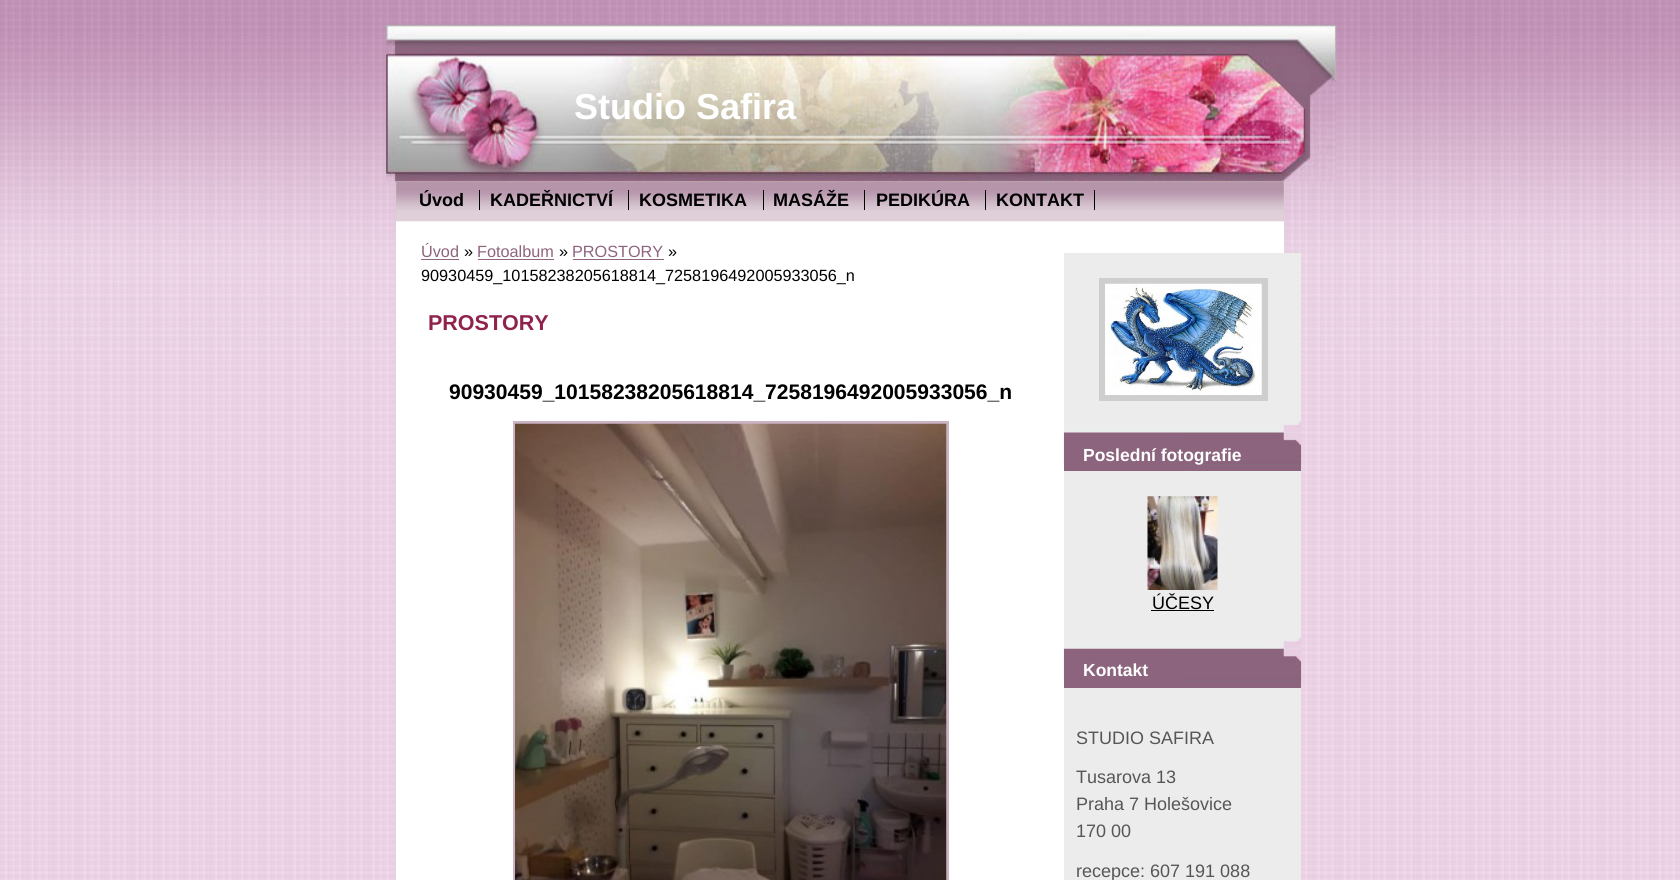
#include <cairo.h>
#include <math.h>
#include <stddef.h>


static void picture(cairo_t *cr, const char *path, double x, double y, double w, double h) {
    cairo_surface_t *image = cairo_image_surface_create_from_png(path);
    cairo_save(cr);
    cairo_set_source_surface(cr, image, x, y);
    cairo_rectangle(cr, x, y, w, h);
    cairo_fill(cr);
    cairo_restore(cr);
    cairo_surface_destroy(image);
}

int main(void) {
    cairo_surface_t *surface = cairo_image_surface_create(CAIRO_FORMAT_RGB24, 1680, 880);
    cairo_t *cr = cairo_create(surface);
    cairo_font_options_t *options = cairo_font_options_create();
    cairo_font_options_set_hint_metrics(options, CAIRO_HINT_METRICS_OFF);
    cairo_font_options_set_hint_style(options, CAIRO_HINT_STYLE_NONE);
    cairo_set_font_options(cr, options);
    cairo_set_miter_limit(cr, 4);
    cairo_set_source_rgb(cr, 1, 1, 1);
    cairo_paint(cr);
    picture(cr, "img1.png", 0, 357, 1680, 523);
    picture(cr, "img2.png", 0, 0, 1680, 357);
    cairo_set_source_rgb(cr, 1, 1, 1);
    cairo_rectangle(cr, 396, 221, 888, 659);
    cairo_fill(cr);
    picture(cr, "img3.png", 386, 25, 951, 157);
    picture(cr, "img4.png", 386, 25, 950, 157);
    cairo_select_font_face(cr, "Liberation Sans", CAIRO_FONT_SLANT_NORMAL, CAIRO_FONT_WEIGHT_BOLD);
    cairo_set_font_size(cr, 36);
    cairo_move_to(cr, 574, 119);
    cairo_show_text(cr, "Studio Safira");
    cairo_set_source_rgb(cr, 0.757, 0.827, 0.612);
    cairo_rectangle(cr, 396, 181, 888, 40);
    cairo_fill(cr);
    picture(cr, "img5.png", 396, 181, 888, 41);
    cairo_set_font_size(cr, 18);
    cairo_set_source_rgb(cr, 0, 0, 0);
    cairo_move_to(cr, 419, 206);
    cairo_show_text(cr, "Úvod");
    cairo_rectangle(cr, 479, 190, 1, 20);
    cairo_fill(cr);
    cairo_move_to(cr, 490, 206);
    cairo_show_text(cr, "KADEŘNICTVÍ");
    cairo_rectangle(cr, 628, 190, 1, 20);
    cairo_fill(cr);
    cairo_move_to(cr, 639, 206);
    cairo_show_text(cr, "KOSMETIKA");
    cairo_rectangle(cr, 763, 190, 1, 20);
    cairo_fill(cr);
    cairo_move_to(cr, 773, 206);
    cairo_show_text(cr, "MASÁŽE");
    cairo_rectangle(cr, 864, 190, 1, 20);
    cairo_fill(cr);
    cairo_move_to(cr, 876, 206);
    cairo_show_text(cr, "PEDIKÚRA");
    cairo_rectangle(cr, 985, 190, 1, 20);
    cairo_fill(cr);
    cairo_move_to(cr, 996, 206);
    cairo_show_text(cr, "KONTAKT");
    cairo_rectangle(cr, 1094, 190, 1, 20);
    cairo_fill(cr);
    cairo_set_source_rgb(cr, 0.925, 0.925, 0.925);
    cairo_rectangle(cr, 1064, 253, 237, 627);
    cairo_fill(cr);
    picture(cr, "img6.png", 1064, 420, 237, 13);
    cairo_rectangle(cr, 1102, 281, 163, 117);
    cairo_set_source_rgb(cr, 0.808, 0.808, 0.808);
    cairo_set_line_width(cr, 6);
    cairo_stroke(cr);
    picture(cr, "img7.png", 1105, 283, 157, 112);
    cairo_set_source_rgb(cr, 0.549, 0.392, 0.494);
    cairo_rectangle(cr, 1064, 465, 237, 6);
    cairo_fill(cr);
    picture(cr, "img8.png", 1063, 432, 239, 33);
    cairo_set_font_size(cr, 17.5);
    cairo_set_source_rgb(cr, 1, 1, 1);
    cairo_move_to(cr, 1083, 461);
    cairo_show_text(cr, "Poslední fotografie");
    picture(cr, "img9.png", 1064, 636, 237, 13);
    picture(cr, "img10.png", 1147, 496, 71, 94);
    cairo_select_font_face(cr, "Liberation Sans", CAIRO_FONT_SLANT_NORMAL, CAIRO_FONT_WEIGHT_NORMAL);
    cairo_set_font_size(cr, 18);
    cairo_set_source_rgb(cr, 0, 0, 0);
    cairo_move_to(cr, 1152, 609);
    cairo_show_text(cr, "ÚČESY");
    cairo_rectangle(cr, 1151, 610, 63, 1);
    cairo_fill(cr);
    cairo_set_source_rgb(cr, 0.549, 0.392, 0.494);
    cairo_rectangle(cr, 1064, 681, 237, 7);
    cairo_fill(cr);
    picture(cr, "img11.png", 1063, 648, 239, 33);
    cairo_select_font_face(cr, "Liberation Sans", CAIRO_FONT_SLANT_NORMAL, CAIRO_FONT_WEIGHT_BOLD);
    cairo_set_font_size(cr, 17.5);
    cairo_set_source_rgb(cr, 1, 1, 1);
    cairo_move_to(cr, 1083, 676);
    cairo_show_text(cr, "Kontakt");
    cairo_select_font_face(cr, "Liberation Sans", CAIRO_FONT_SLANT_NORMAL, CAIRO_FONT_WEIGHT_NORMAL);
    cairo_set_font_size(cr, 18);
    cairo_set_source_rgb(cr, 0.337, 0.337, 0.337);
    cairo_move_to(cr, 1076, 744);
    cairo_show_text(cr, "STUDIO SAFIRA");
    cairo_move_to(cr, 1076, 783);
    cairo_show_text(cr, "Tusarova 13");
    cairo_move_to(cr, 1076, 810);
    cairo_show_text(cr, "Praha 7 Holešovice");
    cairo_move_to(cr, 1076, 837);
    cairo_show_text(cr, "170 00");
    cairo_move_to(cr, 1076, 877);
    cairo_show_text(cr, "recepce: 607 191 088");
    cairo_set_font_size(cr, 16.25);
    cairo_set_source_rgb(cr, 0.557, 0.392, 0.494);
    cairo_move_to(cr, 421, 257);
    cairo_show_text(cr, "Úvod");
    cairo_rectangle(cr, 421, 259, 38, 1);
    cairo_fill(cr);
    cairo_set_source_rgb(cr, 0, 0, 0);
    cairo_move_to(cr, 464, 257);
    cairo_show_text(cr, "»");
    cairo_set_source_rgb(cr, 0.557, 0.392, 0.494);
    cairo_move_to(cr, 477, 257);
    cairo_show_text(cr, "Fotoalbum");
    cairo_rectangle(cr, 478, 259, 76, 1);
    cairo_fill(cr);
    cairo_set_source_rgb(cr, 0, 0, 0);
    cairo_move_to(cr, 559, 257);
    cairo_show_text(cr, "»");
    cairo_set_source_rgb(cr, 0.557, 0.392, 0.494);
    cairo_move_to(cr, 572, 257);
    cairo_show_text(cr, "PROSTORY");
    cairo_rectangle(cr, 573, 259, 91, 1);
    cairo_fill(cr);
    cairo_set_source_rgb(cr, 0, 0, 0);
    cairo_move_to(cr, 668, 257);
    cairo_show_text(cr, "»");
    cairo_move_to(cr, 421, 281);
    cairo_show_text(cr, "90930459_10158238205618814_7258196492005933056_n");
    cairo_select_font_face(cr, "Liberation Sans", CAIRO_FONT_SLANT_NORMAL, CAIRO_FONT_WEIGHT_BOLD);
    cairo_set_font_size(cr, 21.5);
    cairo_set_source_rgb(cr, 0.565, 0.137, 0.302);
    cairo_move_to(cr, 428, 330);
    cairo_show_text(cr, "PROSTORY");
    cairo_set_font_size(cr, 21.05);
    cairo_set_source_rgb(cr, 0, 0, 0);
    cairo_move_to(cr, 449, 399);
    cairo_show_text(cr, "90930459_10158238205618814_7258196492005933056_n");
    cairo_rectangle(cr, 514.5, 422.5, 433, 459);
    cairo_set_source_rgb(cr, 0.796, 0.702, 0.761);
    cairo_set_line_width(cr, 3);
    cairo_stroke(cr);
    picture(cr, "img12.png", 515, 423, 432, 457);
    cairo_surface_write_to_png(surface, "page.png");
    cairo_font_options_destroy(options);
    cairo_destroy(cr);
    cairo_surface_destroy(surface);
    return 0;
}
